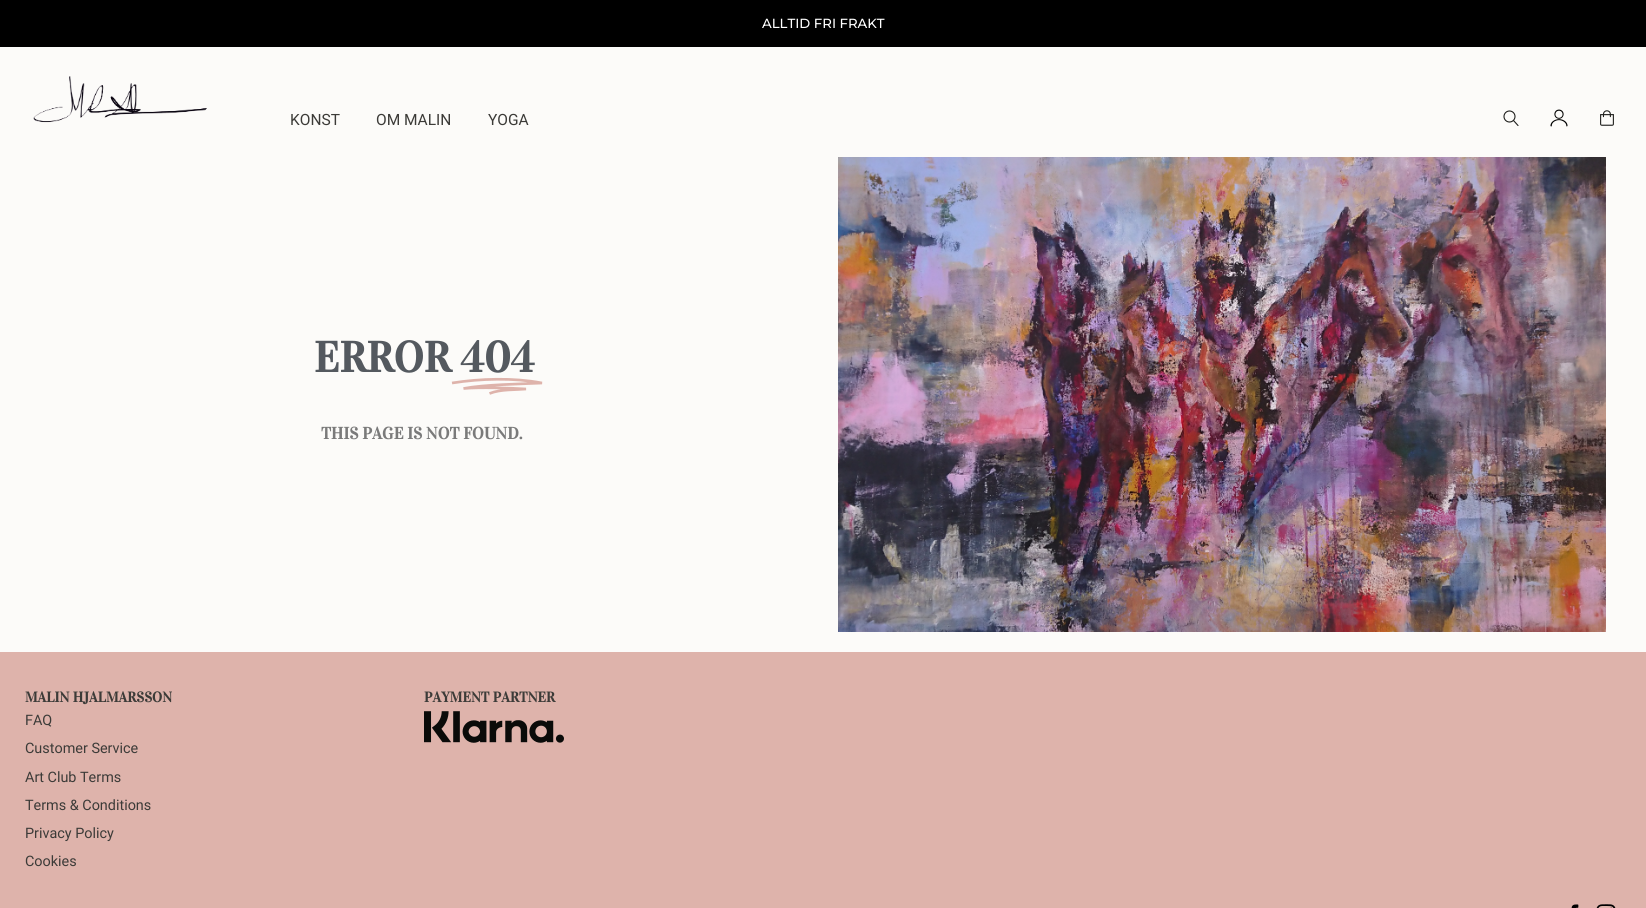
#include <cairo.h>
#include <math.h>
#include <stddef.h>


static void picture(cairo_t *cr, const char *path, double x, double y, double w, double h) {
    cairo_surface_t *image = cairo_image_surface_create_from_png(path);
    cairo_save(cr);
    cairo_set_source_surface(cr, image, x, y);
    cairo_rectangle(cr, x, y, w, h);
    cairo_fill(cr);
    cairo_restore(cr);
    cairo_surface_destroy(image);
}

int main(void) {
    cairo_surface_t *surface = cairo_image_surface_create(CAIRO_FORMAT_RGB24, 1646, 908);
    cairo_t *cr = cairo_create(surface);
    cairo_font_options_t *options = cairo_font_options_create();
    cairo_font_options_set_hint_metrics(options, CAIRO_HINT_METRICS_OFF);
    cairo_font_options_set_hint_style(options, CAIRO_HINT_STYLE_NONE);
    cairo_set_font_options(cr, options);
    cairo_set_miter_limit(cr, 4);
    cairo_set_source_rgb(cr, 0.988, 0.984, 0.976);
    cairo_paint(cr);
    cairo_set_source_rgb(cr, 0, 0, 0);
    cairo_rectangle(cr, 0, 0, 1646, 47);
    cairo_fill(cr);
    cairo_select_font_face(cr, "Montserrat Medium", CAIRO_FONT_SLANT_NORMAL, CAIRO_FONT_WEIGHT_NORMAL);
    cairo_set_font_size(cr, 13.25);
    cairo_set_source_rgb(cr, 1, 1, 1);
    cairo_move_to(cr, 762, 28);
    cairo_show_text(cr, "ALLTID FRI FRAKT");
    picture(cr, "img1.png", 33, 76, 174, 47);
    cairo_select_font_face(cr, "Roboto", CAIRO_FONT_SLANT_NORMAL, CAIRO_FONT_WEIGHT_NORMAL);
    cairo_set_font_size(cr, 15.5);
    cairo_set_source_rgb(cr, 0.235, 0.231, 0.22);
    cairo_move_to(cr, 290, 125);
    cairo_show_text(cr, "KONST");
    cairo_move_to(cr, 376, 125);
    cairo_show_text(cr, "OM MALIN");
    cairo_move_to(cr, 488, 125);
    cairo_show_text(cr, "YOGA");
    cairo_new_path(cr);
    cairo_arc(cr, 1509.5, 116.5, 5.5, 0, 2 * M_PI);
    cairo_set_source_rgb(cr, 0.114, 0.114, 0.106);
    cairo_set_line_width(cr, 1.1);
    cairo_stroke(cr);
    cairo_new_path(cr);
    cairo_move_to(cr, 1513.5, 120.5);
    cairo_line_to(cr, 1518, 125.5);
    cairo_set_line_cap(cr, CAIRO_LINE_CAP_ROUND);
    cairo_stroke(cr);
    picture(cr, "img2.png", 1550, 109, 18, 18);
    picture(cr, "img3.png", 1600, 110, 14, 16);
    cairo_select_font_face(cr, "Vidaloka", CAIRO_FONT_SLANT_NORMAL, CAIRO_FONT_WEIGHT_BOLD);
    cairo_set_font_size(cr, 43);
    cairo_set_source_rgb(cr, 0.329, 0.349, 0.373);
    cairo_move_to(cr, 314, 372);
    cairo_show_text(cr, "ERROR 404");
    cairo_new_path(cr);
    cairo_move_to(cr, 452, 383);
    cairo_curve_to(cr, 480.5, 378.5, 513.5, 377.5, 542, 383);
    cairo_curve_to(cr, 521.5, 384, 484, 384.5, 463.5, 388.5);
    cairo_curve_to(cr, 479, 387, 511, 388, 526, 389);
    cairo_curve_to(cr, 515.5, 390, 500.5, 389, 489.5, 393.5);
    cairo_set_source_rgb(cr, 0.871, 0.702, 0.671);
    cairo_set_line_width(cr, 2.7);
    cairo_set_line_cap(cr, CAIRO_LINE_CAP_BUTT);
    cairo_stroke(cr);
    cairo_set_font_size(cr, 16.75);
    cairo_set_source_rgb(cr, 0.478, 0.478, 0.478);
    cairo_move_to(cr, 321, 439);
    cairo_show_text(cr, "THIS PAGE IS NOT FOUND.");
    picture(cr, "img4.png", 838, 157, 768, 475);
    cairo_set_source_rgb(cr, 0.871, 0.702, 0.671);
    cairo_rectangle(cr, 0, 652, 1646, 256);
    cairo_fill(cr);
    cairo_set_font_size(cr, 14.4);
    cairo_set_source_rgb(cr, 0.235, 0.231, 0.22);
    cairo_move_to(cr, 25, 702);
    cairo_show_text(cr, "MALIN HJALMARSSON");
    cairo_select_font_face(cr, "Roboto", CAIRO_FONT_SLANT_NORMAL, CAIRO_FONT_WEIGHT_NORMAL);
    cairo_move_to(cr, 25, 725);
    cairo_show_text(cr, "FAQ");
    cairo_move_to(cr, 25, 753);
    cairo_show_text(cr, "Customer Service");
    cairo_move_to(cr, 25, 782);
    cairo_show_text(cr, "Art Club Terms");
    cairo_move_to(cr, 25, 810);
    cairo_show_text(cr, "Terms & Conditions");
    cairo_move_to(cr, 25, 838);
    cairo_show_text(cr, "Privacy Policy");
    cairo_move_to(cr, 25, 866);
    cairo_show_text(cr, "Cookies");
    cairo_select_font_face(cr, "Vidaloka", CAIRO_FONT_SLANT_NORMAL, CAIRO_FONT_WEIGHT_BOLD);
    cairo_move_to(cr, 424, 702);
    cairo_show_text(cr, "PAYMENT PARTNER");
    picture(cr, "img5.png", 424, 711, 140, 32);
    picture(cr, "img6.png", 1571, 904, 8, 4);
    picture(cr, "img7.png", 1596, 904, 20, 4);
    cairo_surface_write_to_png(surface, "page.png");
    cairo_font_options_destroy(options);
    cairo_destroy(cr);
    cairo_surface_destroy(surface);
    return 0;
}
